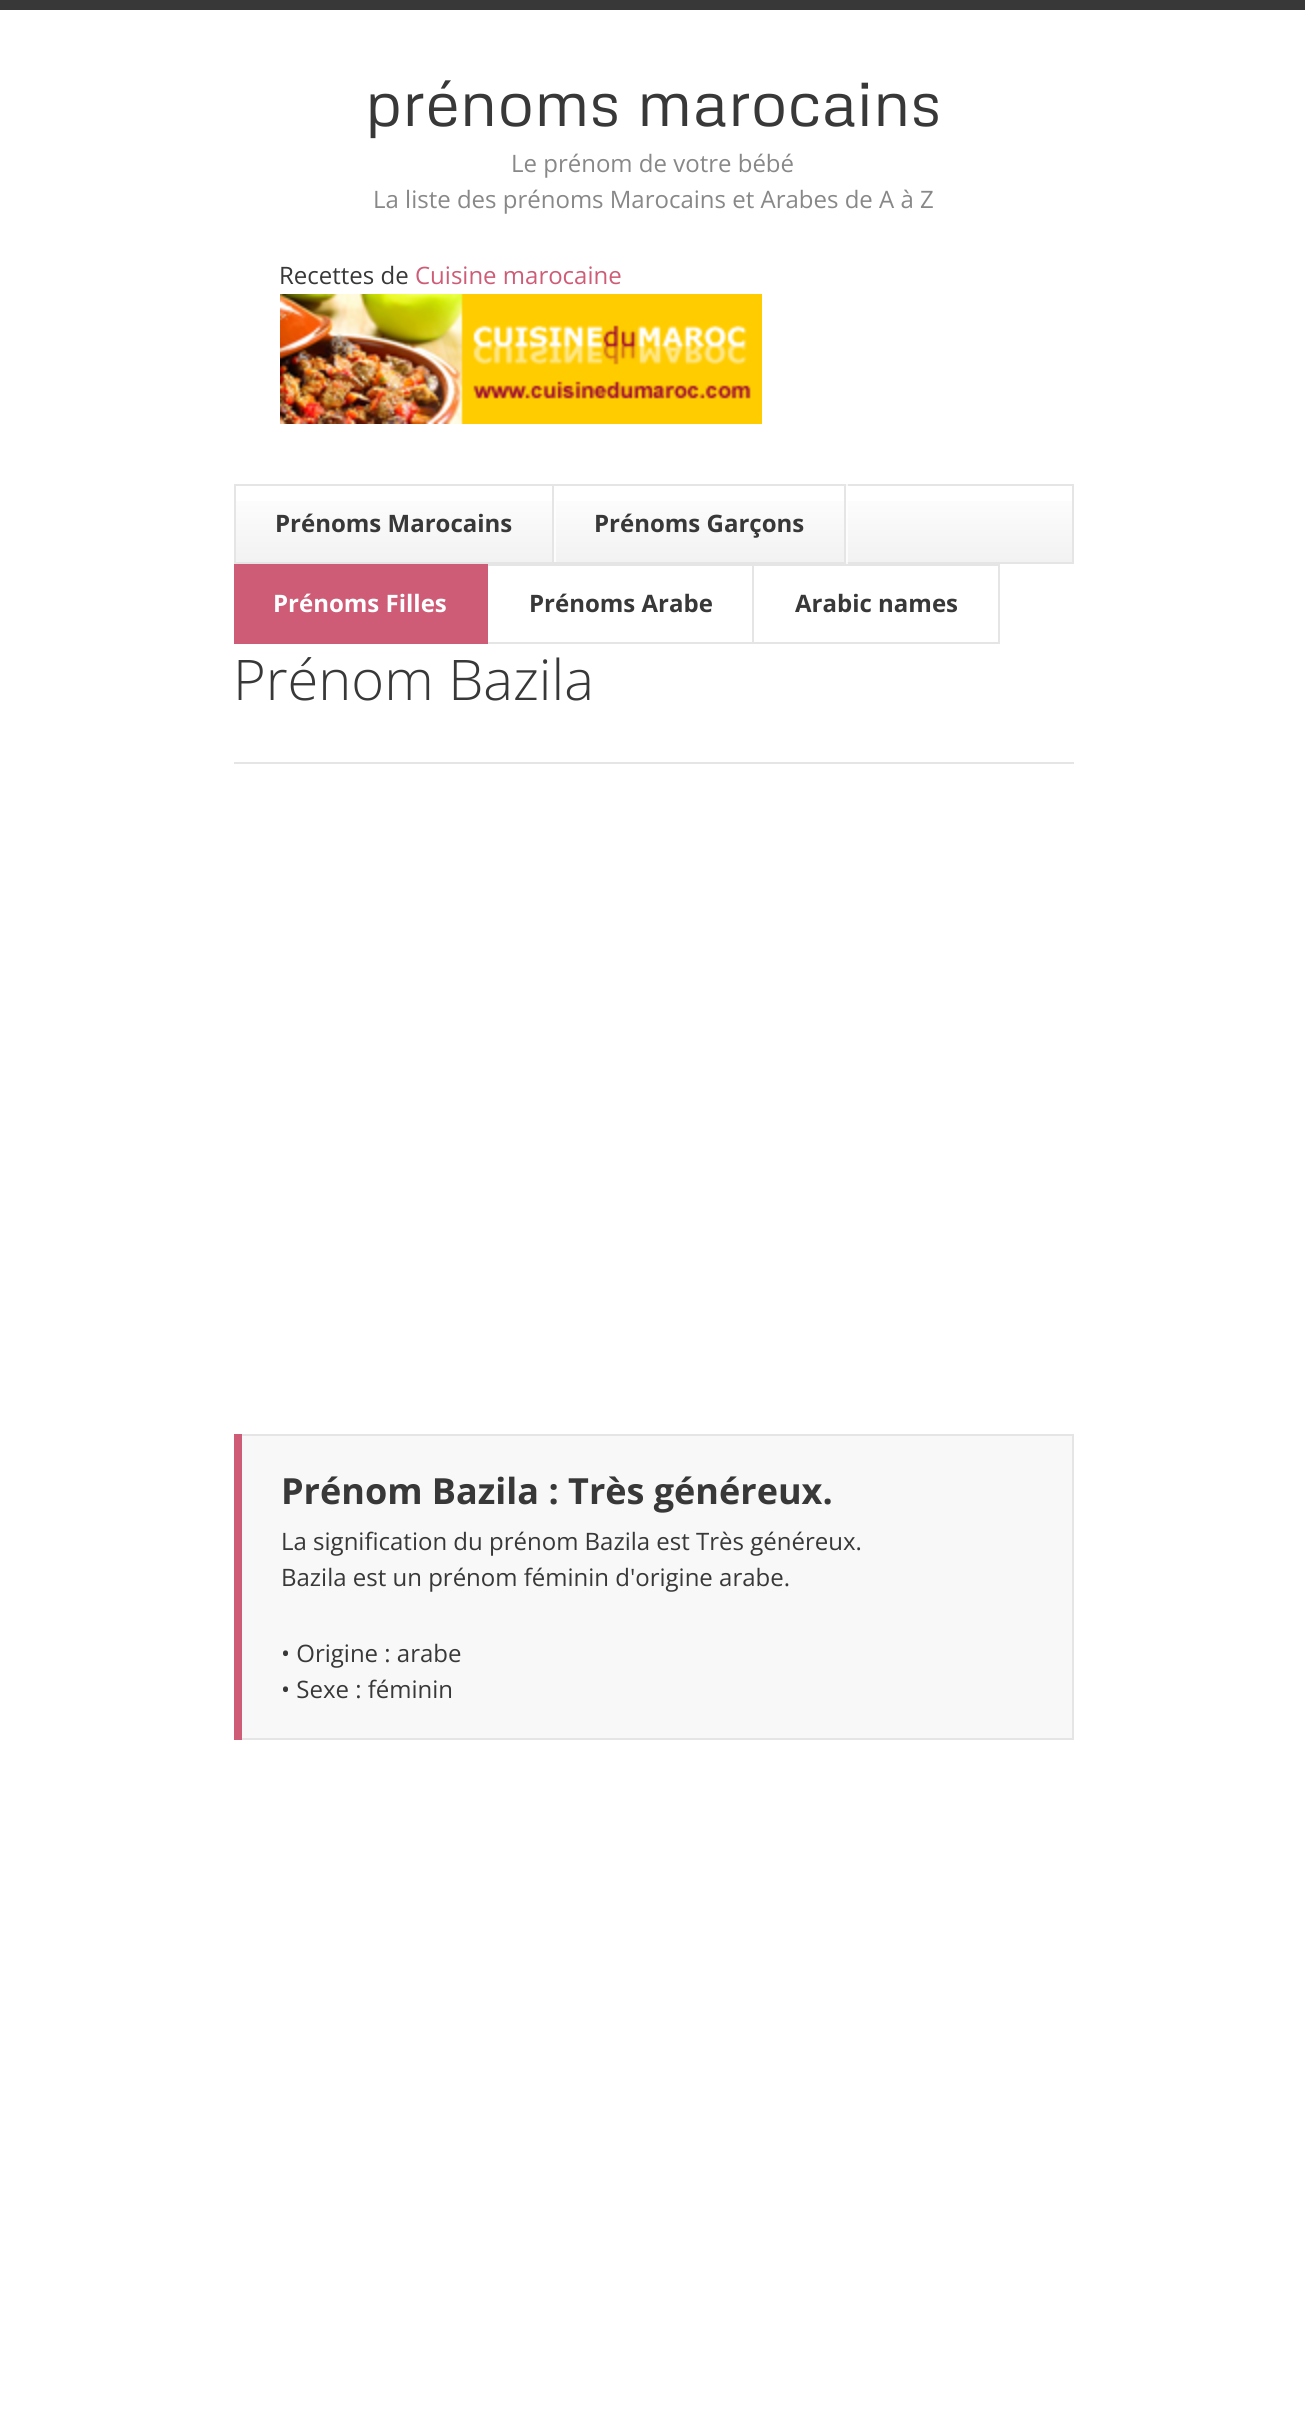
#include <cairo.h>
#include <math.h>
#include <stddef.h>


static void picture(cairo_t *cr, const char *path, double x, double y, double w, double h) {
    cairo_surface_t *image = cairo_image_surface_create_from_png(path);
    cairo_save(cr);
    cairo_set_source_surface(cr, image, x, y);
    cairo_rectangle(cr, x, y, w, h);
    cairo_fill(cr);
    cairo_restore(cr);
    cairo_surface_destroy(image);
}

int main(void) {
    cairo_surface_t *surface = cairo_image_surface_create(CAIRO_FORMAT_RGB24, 1305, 2427);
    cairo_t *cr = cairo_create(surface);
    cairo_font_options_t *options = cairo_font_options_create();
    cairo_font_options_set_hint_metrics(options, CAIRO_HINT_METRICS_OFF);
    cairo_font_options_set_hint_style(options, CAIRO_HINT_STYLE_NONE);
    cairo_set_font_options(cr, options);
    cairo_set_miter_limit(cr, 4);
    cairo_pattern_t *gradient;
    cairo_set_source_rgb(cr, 1, 1, 1);
    cairo_paint(cr);
    cairo_set_source_rgb(cr, 0.22, 0.22, 0.22);
    cairo_rectangle(cr, 0, 0, 1305, 10);
    cairo_fill(cr);
    cairo_select_font_face(cr, "Metrophobic", CAIRO_FONT_SLANT_NORMAL, CAIRO_FONT_WEIGHT_NORMAL);
    cairo_set_font_size(cr, 64);
    cairo_move_to(cr, 365, 126);
    cairo_show_text(cr, "prénoms marocains");
    cairo_select_font_face(cr, "Open Sans", CAIRO_FONT_SLANT_NORMAL, CAIRO_FONT_WEIGHT_NORMAL);
    cairo_set_font_size(cr, 24);
    cairo_set_source_rgb(cr, 0.533, 0.533, 0.533);
    cairo_move_to(cr, 511, 172);
    cairo_show_text(cr, "Le prénom de votre bébé");
    cairo_move_to(cr, 373, 208);
    cairo_show_text(cr, "La liste des prénoms Marocains et Arabes de A à Z");
    cairo_set_source_rgb(cr, 0.22, 0.22, 0.22);
    cairo_move_to(cr, 279, 284);
    cairo_show_text(cr, "Recettes de");
    cairo_set_source_rgb(cr, 0.808, 0.361, 0.463);
    cairo_move_to(cr, 415, 284);
    cairo_show_text(cr, "Cuisine marocaine");
    picture(cr, "img1.png", 280, 294, 482, 130);
    gradient = cairo_pattern_create_linear(654, 486, 654, 562);
    cairo_pattern_add_color_stop_rgba(gradient, 0, 1, 1, 1, 1);
    cairo_pattern_add_color_stop_rgba(gradient, 1, 0.949, 0.949, 0.949, 1);
    cairo_set_source(cr, gradient);
    cairo_pattern_destroy(gradient);
    cairo_rectangle(cr, 236, 501, 836, 61);
    cairo_fill(cr);
    cairo_rectangle(cr, 235, 485, 838, 78);
    cairo_set_source_rgb(cr, 0.898, 0.898, 0.898);
    cairo_stroke(cr);
    cairo_set_source_rgba(cr, 1, 1, 1, 0.75);
    cairo_rectangle(cr, 554, 484, 2, 80);
    cairo_fill(cr);
    cairo_rectangle(cr, 235, 485, 318, 78);
    cairo_set_source_rgb(cr, 0.898, 0.898, 0.898);
    cairo_stroke(cr);
    cairo_select_font_face(cr, "Open Sans", CAIRO_FONT_SLANT_NORMAL, CAIRO_FONT_WEIGHT_BOLD);
    cairo_set_source_rgb(cr, 0.22, 0.22, 0.22);
    cairo_move_to(cr, 275, 532);
    cairo_show_text(cr, "Prénoms Marocains");
    cairo_set_source_rgba(cr, 1, 1, 1, 0.75);
    cairo_rectangle(cr, 846, 484, 2, 80);
    cairo_fill(cr);
    cairo_set_source_rgb(cr, 0.898, 0.898, 0.898);
    cairo_rectangle(cr, 554, 484, 2, 2);
    cairo_fill(cr);
    cairo_rectangle(cr, 844, 484, 2, 80);
    cairo_fill(cr);
    cairo_rectangle(cr, 554, 562, 2, 2);
    cairo_fill(cr);
    cairo_set_source_rgb(cr, 0.22, 0.22, 0.22);
    cairo_move_to(cr, 594, 532);
    cairo_show_text(cr, "Prénoms Garçons");
    cairo_set_source_rgb(cr, 0.808, 0.361, 0.463);
    cairo_rectangle(cr, 234, 564, 254, 80);
    cairo_fill(cr);
    cairo_set_source_rgb(cr, 1, 1, 1);
    cairo_move_to(cr, 273, 612);
    cairo_show_text(cr, "Prénoms Filles");
    cairo_set_source_rgb(cr, 0.898, 0.898, 0.898);
    cairo_rectangle(cr, 488, 564, 512, 2);
    cairo_fill(cr);
    cairo_rectangle(cr, 752, 564, 2, 80);
    cairo_fill(cr);
    cairo_rectangle(cr, 488, 642, 266, 2);
    cairo_fill(cr);
    cairo_set_source_rgb(cr, 0.22, 0.22, 0.22);
    cairo_move_to(cr, 529, 612);
    cairo_show_text(cr, "Prénoms Arabe");
    cairo_set_source_rgb(cr, 0.898, 0.898, 0.898);
    cairo_rectangle(cr, 998, 564, 2, 80);
    cairo_fill(cr);
    cairo_rectangle(cr, 754, 642, 246, 2);
    cairo_fill(cr);
    cairo_set_source_rgb(cr, 0.22, 0.22, 0.22);
    cairo_move_to(cr, 795, 612);
    cairo_show_text(cr, "Arabic names");
    cairo_set_source_rgb(cr, 0.898, 0.898, 0.898);
    cairo_rectangle(cr, 234, 762, 840, 2);
    cairo_fill(cr);
    cairo_select_font_face(cr, "Open Sans Light", CAIRO_FONT_SLANT_NORMAL, CAIRO_FONT_WEIGHT_NORMAL);
    cairo_set_font_size(cr, 56);
    cairo_set_source_rgb(cr, 0.22, 0.22, 0.22);
    cairo_move_to(cr, 233, 700);
    cairo_show_text(cr, "Prénom Bazila");
    cairo_set_source_rgb(cr, 0.808, 0.361, 0.463);
    cairo_rectangle(cr, 234, 1434, 8, 306);
    cairo_fill(cr);
    cairo_set_source_rgb(cr, 0.969, 0.969, 0.969);
    cairo_rectangle(cr, 242, 1436, 830, 302);
    cairo_fill(cr);
    cairo_set_source_rgb(cr, 0.898, 0.898, 0.898);
    cairo_rectangle(cr, 242, 1434, 832, 2);
    cairo_fill(cr);
    cairo_rectangle(cr, 1072, 1434, 2, 306);
    cairo_fill(cr);
    cairo_rectangle(cr, 242, 1738, 832, 2);
    cairo_fill(cr);
    cairo_select_font_face(cr, "Open Sans", CAIRO_FONT_SLANT_NORMAL, CAIRO_FONT_WEIGHT_BOLD);
    cairo_set_font_size(cr, 36);
    cairo_set_source_rgb(cr, 0.22, 0.22, 0.22);
    cairo_move_to(cr, 281, 1504);
    cairo_show_text(cr, "Prénom Bazila : Très généreux.");
    cairo_select_font_face(cr, "Open Sans", CAIRO_FONT_SLANT_NORMAL, CAIRO_FONT_WEIGHT_NORMAL);
    cairo_set_font_size(cr, 24);
    cairo_move_to(cr, 281, 1550);
    cairo_show_text(cr, "La signification du prénom Bazila est Très généreux.");
    cairo_move_to(cr, 281, 1586);
    cairo_show_text(cr, "Bazila est un prénom féminin d'origine arabe.");
    cairo_move_to(cr, 281, 1662);
    cairo_show_text(cr, "• Origine : arabe");
    cairo_move_to(cr, 281, 1698);
    cairo_show_text(cr, "• Sexe : féminin");
    cairo_surface_write_to_png(surface, "page.png");
    cairo_font_options_destroy(options);
    cairo_destroy(cr);
    cairo_surface_destroy(surface);
    return 0;
}
